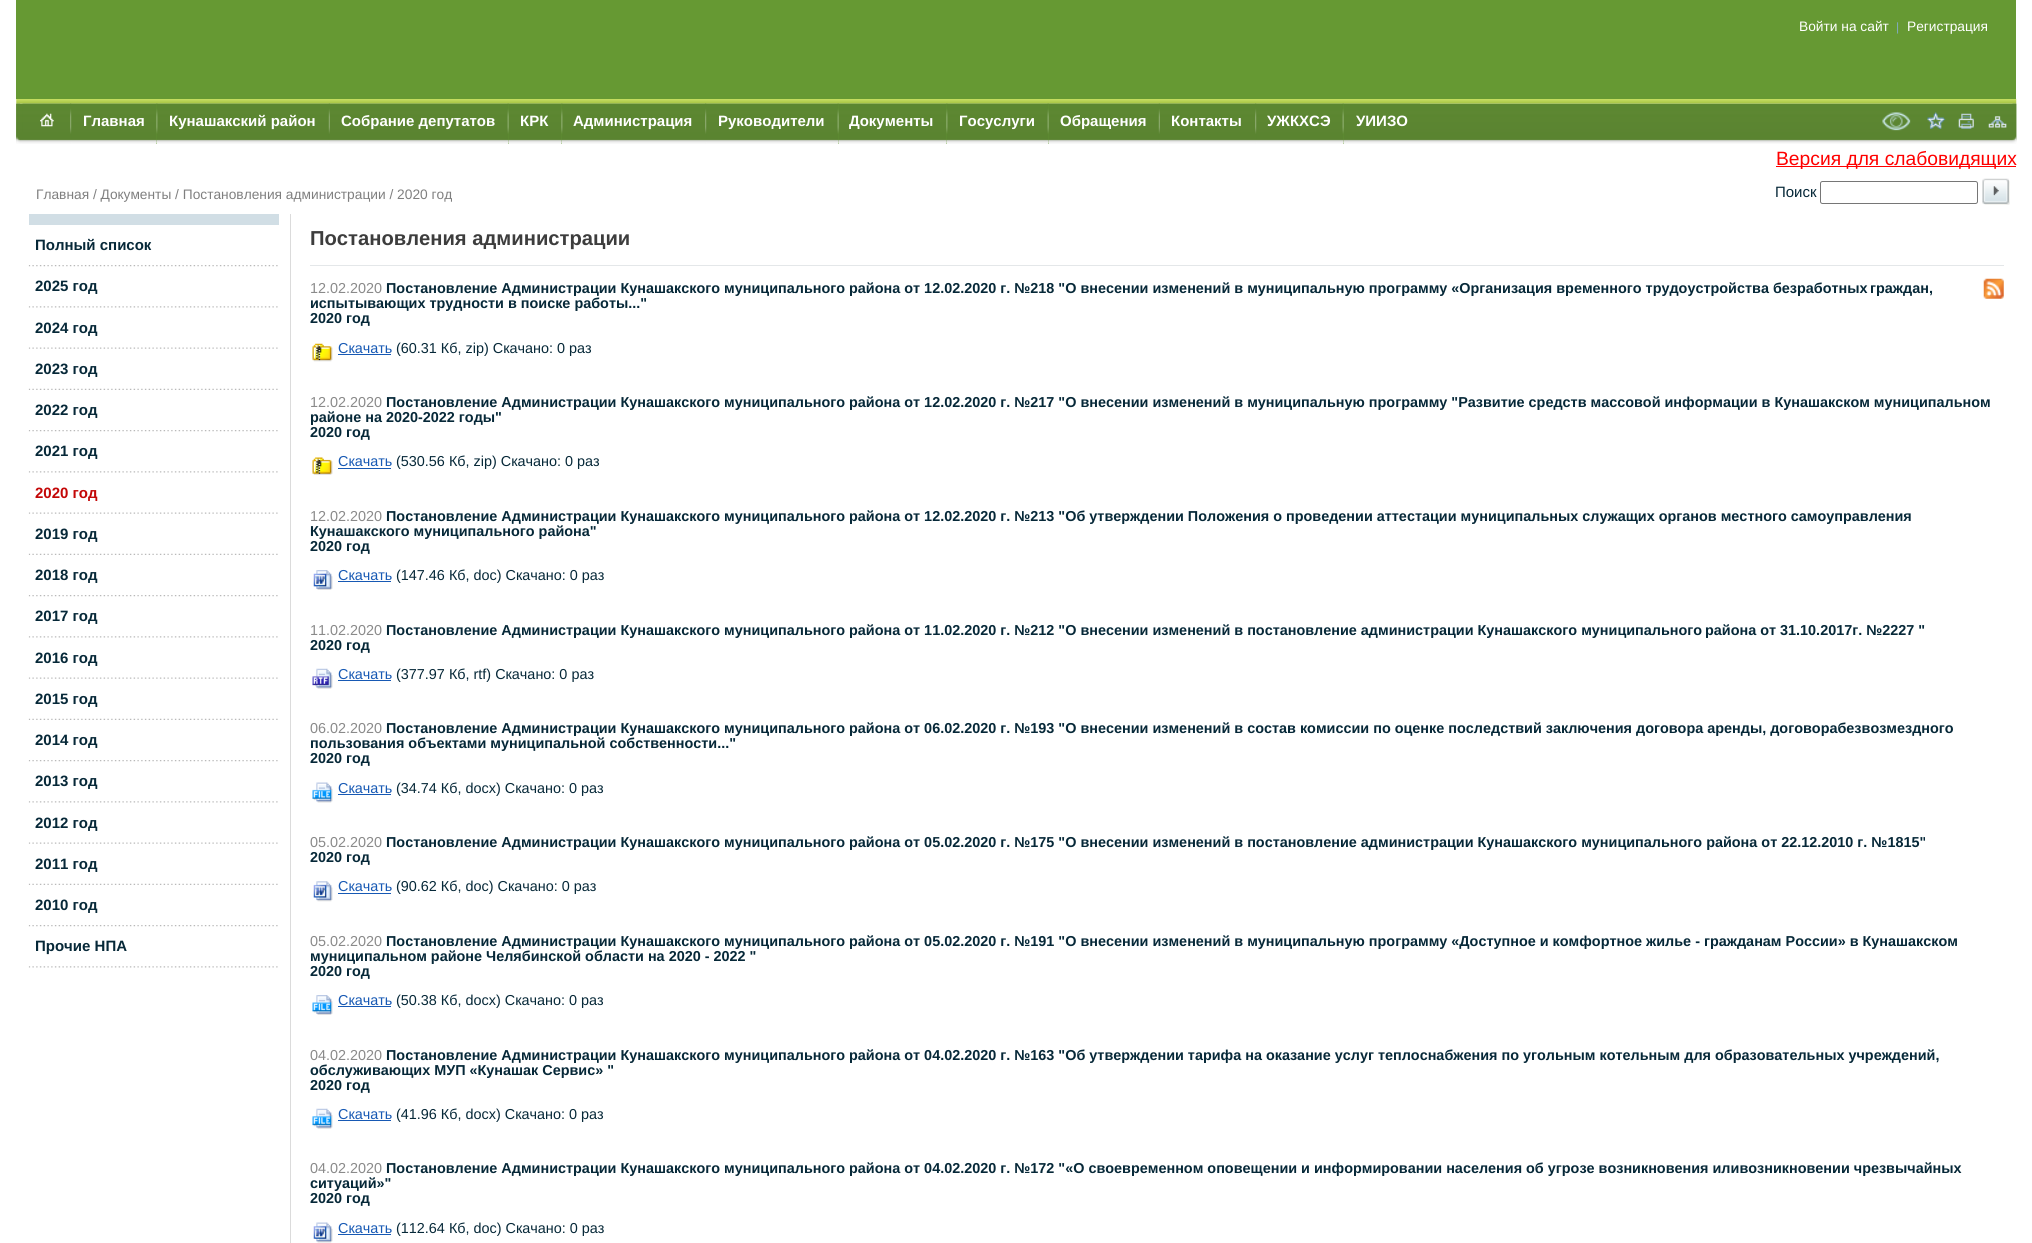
#include <cairo.h>
#include <math.h>
#include <stddef.h>


static void round_rect(cairo_t *cr, double x, double y, double w, double h, double r) {
    cairo_new_sub_path(cr);
    cairo_arc(cr, x + w - r, y + h - r, r, 0, M_PI / 2);
    cairo_arc(cr, x + r, y + h - r, r, M_PI / 2, M_PI);
    cairo_arc(cr, x + r, y + r, r, M_PI, 1.5 * M_PI);
    cairo_arc(cr, x + w - r, y + r, r, 1.5 * M_PI, 2 * M_PI);
    cairo_close_path(cr);
}

static void picture(cairo_t *cr, const char *path, double x, double y, double w, double h) {
    cairo_surface_t *image = cairo_image_surface_create_from_png(path);
    cairo_save(cr);
    cairo_set_source_surface(cr, image, x, y);
    cairo_rectangle(cr, x, y, w, h);
    cairo_fill(cr);
    cairo_restore(cr);
    cairo_surface_destroy(image);
}

int main(void) {
    cairo_surface_t *surface = cairo_image_surface_create(CAIRO_FORMAT_RGB24, 2032, 1243);
    cairo_t *cr = cairo_create(surface);
    cairo_font_options_t *options = cairo_font_options_create();
    cairo_font_options_set_hint_metrics(options, CAIRO_HINT_METRICS_OFF);
    cairo_font_options_set_hint_style(options, CAIRO_HINT_STYLE_NONE);
    cairo_set_font_options(cr, options);
    cairo_set_miter_limit(cr, 4);
    cairo_set_source_rgb(cr, 1, 1, 1);
    cairo_paint(cr);
    picture(cr, "img1.png", 16, 98, 2001, 6);
    cairo_set_source_rgb(cr, 0.4, 0.6, 0.2);
    cairo_rectangle(cr, 16, 0, 2000, 99);
    cairo_fill(cr);
    cairo_select_font_face(cr, "Liberation Sans", CAIRO_FONT_SLANT_NORMAL, CAIRO_FONT_WEIGHT_NORMAL);
    cairo_set_font_size(cr, 13.75);
    cairo_set_source_rgb(cr, 1, 1, 1);
    cairo_move_to(cr, 1799, 31);
    cairo_show_text(cr, "Войти на сайт");
    cairo_set_font_size(cr, 12);
    cairo_set_source_rgb(cr, 0.506, 0.675, 0.753);
    cairo_move_to(cr, 1896, 31);
    cairo_show_text(cr, "|");
    cairo_set_font_size(cr, 13.75);
    cairo_set_source_rgb(cr, 1, 1, 1);
    cairo_move_to(cr, 1907, 31);
    cairo_show_text(cr, "Регистрация");
    picture(cr, "img2.png", 16, 103, 2001, 41);
    picture(cr, "img3.png", 16, 103, 4, 41);
    picture(cr, "img4.png", 22, 103, 1398, 41);
    picture(cr, "img5.png", 40, 113, 14, 14);
    picture(cr, "img6.png", 70, 103, 2, 41);
    cairo_select_font_face(cr, "Liberation Sans", CAIRO_FONT_SLANT_NORMAL, CAIRO_FONT_WEIGHT_BOLD);
    cairo_set_font_size(cr, 15);
    cairo_move_to(cr, 83, 126);
    cairo_show_text(cr, "Главная");
    cairo_set_source_rgb(cr, 0.4, 0.6, 0.2);
    cairo_rectangle(cr, 156, 104, 1, 40);
    cairo_fill(cr);
    picture(cr, "img7.png", 156, 103, 2, 41);
    cairo_set_source_rgb(cr, 1, 1, 1);
    cairo_move_to(cr, 169, 126);
    cairo_show_text(cr, "Кунашакский район");
    picture(cr, "img8.png", 328, 103, 2, 41);
    cairo_move_to(cr, 341, 126);
    cairo_show_text(cr, "Собрание депутатов");
    cairo_set_source_rgb(cr, 0.4, 0.6, 0.2);
    cairo_rectangle(cr, 508, 104, 1, 40);
    cairo_fill(cr);
    picture(cr, "img9.png", 507, 103, 2, 41);
    cairo_set_source_rgb(cr, 1, 1, 1);
    cairo_move_to(cr, 520, 126);
    cairo_show_text(cr, "КРК");
    cairo_set_source_rgb(cr, 0.4, 0.6, 0.2);
    cairo_rectangle(cr, 561, 104, 1, 40);
    cairo_fill(cr);
    picture(cr, "img7.png", 561, 103, 2, 41);
    cairo_set_source_rgb(cr, 1, 1, 1);
    cairo_move_to(cr, 573, 126);
    cairo_show_text(cr, "Администрация");
    picture(cr, "img6.png", 705, 103, 2, 41);
    cairo_move_to(cr, 718, 126);
    cairo_show_text(cr, "Руководители");
    cairo_set_source_rgb(cr, 0.4, 0.6, 0.2);
    cairo_rectangle(cr, 838, 104, 1, 40);
    cairo_fill(cr);
    picture(cr, "img9.png", 837, 103, 2, 41);
    cairo_set_source_rgb(cr, 1, 1, 1);
    cairo_move_to(cr, 849, 126);
    cairo_show_text(cr, "Документы");
    cairo_set_source_rgb(cr, 0.4, 0.6, 0.2);
    cairo_rectangle(cr, 946, 104, 1, 40);
    cairo_fill(cr);
    picture(cr, "img7.png", 946, 103, 2, 41);
    cairo_set_source_rgb(cr, 1, 1, 1);
    cairo_move_to(cr, 959, 126);
    cairo_show_text(cr, "Госуслуги");
    cairo_set_source_rgb(cr, 0.4, 0.6, 0.2);
    cairo_rectangle(cr, 1048, 104, 1, 40);
    cairo_fill(cr);
    picture(cr, "img9.png", 1047, 103, 2, 41);
    cairo_set_source_rgb(cr, 1, 1, 1);
    cairo_move_to(cr, 1060, 126);
    cairo_show_text(cr, "Обращения");
    picture(cr, "img8.png", 1158, 103, 2, 41);
    cairo_move_to(cr, 1171, 126);
    cairo_show_text(cr, "Контакты");
    picture(cr, "img6.png", 1255, 103, 2, 41);
    cairo_move_to(cr, 1267, 126);
    cairo_show_text(cr, "УЖКХСЭ");
    cairo_set_source_rgb(cr, 0.4, 0.6, 0.2);
    cairo_rectangle(cr, 1343, 104, 1, 40);
    cairo_fill(cr);
    picture(cr, "img9.png", 1342, 103, 2, 41);
    cairo_set_source_rgb(cr, 1, 1, 1);
    cairo_move_to(cr, 1356, 126);
    cairo_show_text(cr, "УИИЗО");
    picture(cr, "img10.png", 2012, 103, 5, 41);
    picture(cr, "img11.png", 1882, 112, 29, 19);
    picture(cr, "img12.png", 1927, 112, 19, 17);
    picture(cr, "img13.png", 1958, 113, 16, 16);
    picture(cr, "img14.png", 1988, 116, 19, 12);
    cairo_set_source_rgb(cr, 1, 0, 0);
    cairo_rectangle(cr, 1776, 166, 240, 1);
    cairo_fill(cr);
    cairo_select_font_face(cr, "Liberation Sans", CAIRO_FONT_SLANT_NORMAL, CAIRO_FONT_WEIGHT_NORMAL);
    cairo_set_font_size(cr, 19.25);
    cairo_move_to(cr, 1776, 165);
    cairo_show_text(cr, "Версия для слабовидящих");
    cairo_set_font_size(cr, 13.75);
    cairo_set_source_rgb(cr, 0.498, 0.498, 0.498);
    cairo_move_to(cr, 36, 199);
    cairo_show_text(cr, "Главная / Документы / Постановления администрации / 2020 год");
    cairo_set_font_size(cr, 15);
    cairo_set_source_rgb(cr, 0.027, 0.157, 0.22);
    cairo_move_to(cr, 1775, 197);
    cairo_show_text(cr, "Поиск");
    round_rect(cr, 1820.5, 181.5, 157, 22, 2);
    cairo_set_source_rgb(cr, 0.463, 0.463, 0.463);
    cairo_set_line_width(cr, 1);
    cairo_stroke(cr);
    picture(cr, "img15.png", 1982, 178, 28, 27);
    cairo_set_source_rgb(cr, 0.859, 0.859, 0.859);
    cairo_rectangle(cr, 290, 214, 1, 1029);
    cairo_fill(cr);
    cairo_set_source_rgb(cr, 0.82, 0.871, 0.898);
    cairo_rectangle(cr, 29, 214, 250, 11);
    cairo_fill(cr);
    cairo_select_font_face(cr, "Liberation Sans", CAIRO_FONT_SLANT_NORMAL, CAIRO_FONT_WEIGHT_BOLD);
    cairo_set_source_rgb(cr, 0.027, 0.157, 0.22);
    cairo_move_to(cr, 35, 250);
    cairo_show_text(cr, "Полный список");
    picture(cr, "img16.png", 28, 265, 250, 2);
    cairo_move_to(cr, 35, 291);
    cairo_show_text(cr, "2025 год");
    picture(cr, "img17.png", 28, 306, 250, 2);
    cairo_move_to(cr, 35, 333);
    cairo_show_text(cr, "2024 год");
    picture(cr, "img18.png", 28, 347, 250, 2);
    cairo_move_to(cr, 35, 374);
    cairo_show_text(cr, "2023 год");
    picture(cr, "img19.png", 28, 388, 250, 2);
    cairo_move_to(cr, 35, 415);
    cairo_show_text(cr, "2022 год");
    picture(cr, "img16.png", 28, 430, 250, 2);
    cairo_move_to(cr, 35, 456);
    cairo_show_text(cr, "2021 год");
    picture(cr, "img17.png", 28, 471, 250, 2);
    cairo_set_source_rgb(cr, 0.765, 0.031, 0.031);
    cairo_move_to(cr, 35, 498);
    cairo_show_text(cr, "2020 год");
    picture(cr, "img18.png", 28, 512, 250, 2);
    cairo_set_source_rgb(cr, 0.027, 0.157, 0.22);
    cairo_move_to(cr, 35, 539);
    cairo_show_text(cr, "2019 год");
    picture(cr, "img19.png", 28, 553, 250, 2);
    cairo_move_to(cr, 35, 580);
    cairo_show_text(cr, "2018 год");
    picture(cr, "img16.png", 28, 595, 250, 2);
    cairo_move_to(cr, 35, 621);
    cairo_show_text(cr, "2017 год");
    picture(cr, "img17.png", 28, 636, 250, 2);
    cairo_move_to(cr, 35, 663);
    cairo_show_text(cr, "2016 год");
    picture(cr, "img18.png", 28, 677, 250, 2);
    cairo_move_to(cr, 35, 704);
    cairo_show_text(cr, "2015 год");
    picture(cr, "img19.png", 28, 718, 250, 2);
    cairo_move_to(cr, 35, 745);
    cairo_show_text(cr, "2014 год");
    picture(cr, "img16.png", 28, 760, 250, 2);
    cairo_move_to(cr, 35, 786);
    cairo_show_text(cr, "2013 год");
    picture(cr, "img17.png", 28, 801, 250, 2);
    cairo_move_to(cr, 35, 828);
    cairo_show_text(cr, "2012 год");
    picture(cr, "img18.png", 28, 842, 250, 2);
    cairo_move_to(cr, 35, 869);
    cairo_show_text(cr, "2011 год");
    picture(cr, "img19.png", 28, 883, 250, 2);
    cairo_move_to(cr, 35, 910);
    cairo_show_text(cr, "2010 год");
    picture(cr, "img16.png", 28, 925, 250, 2);
    cairo_move_to(cr, 35, 951);
    cairo_show_text(cr, "Прочие НПА");
    picture(cr, "img17.png", 28, 966, 250, 2);
    cairo_set_source_rgb(cr, 0.894, 0.906, 0.914);
    cairo_rectangle(cr, 310, 265, 1694, 1);
    cairo_fill(cr);
    cairo_set_font_size(cr, 20.2);
    cairo_set_source_rgb(cr, 0.239, 0.239, 0.239);
    cairo_move_to(cr, 310, 245);
    cairo_show_text(cr, "Постановления администрации");
    cairo_select_font_face(cr, "Liberation Sans", CAIRO_FONT_SLANT_NORMAL, CAIRO_FONT_WEIGHT_NORMAL);
    cairo_set_font_size(cr, 14.41);
    cairo_set_source_rgb(cr, 0.541, 0.541, 0.541);
    cairo_move_to(cr, 310, 293);
    cairo_show_text(cr, "12.02.2020");
    cairo_select_font_face(cr, "Liberation Sans", CAIRO_FONT_SLANT_NORMAL, CAIRO_FONT_WEIGHT_BOLD);
    cairo_set_source_rgb(cr, 0.027, 0.157, 0.22);
    cairo_move_to(cr, 386, 293);
    cairo_show_text(cr, "Постановление Администрации Кунашакского муниципального района от 12.02.2020 г. №218 \"О внесении изменений в муниципальную программу «Организация временного трудоустройства безработных");
    cairo_move_to(cr, 1870, 293);
    cairo_show_text(cr, "граждан,");
    cairo_move_to(cr, 310, 308);
    cairo_show_text(cr, "испытывающих трудности в поиске работы...\"");
    cairo_move_to(cr, 310, 323);
    cairo_show_text(cr, "2020 год");
    picture(cr, "img20.png", 312, 343, 21, 19);
    cairo_select_font_face(cr, "Liberation Sans", CAIRO_FONT_SLANT_NORMAL, CAIRO_FONT_WEIGHT_NORMAL);
    cairo_set_source_rgb(cr, 0.09, 0.349, 0.706);
    cairo_move_to(cr, 338, 353);
    cairo_show_text(cr, "Скачать");
    cairo_rectangle(cr, 338, 354, 53, 1);
    cairo_fill(cr);
    cairo_set_source_rgb(cr, 0.027, 0.157, 0.22);
    cairo_move_to(cr, 396, 353);
    cairo_show_text(cr, "(60.31 Кб, zip) Скачано: 0 раз");
    cairo_set_source_rgb(cr, 0.541, 0.541, 0.541);
    cairo_move_to(cr, 310, 407);
    cairo_show_text(cr, "12.02.2020");
    cairo_select_font_face(cr, "Liberation Sans", CAIRO_FONT_SLANT_NORMAL, CAIRO_FONT_WEIGHT_BOLD);
    cairo_set_source_rgb(cr, 0.027, 0.157, 0.22);
    cairo_move_to(cr, 386, 407);
    cairo_show_text(cr, "Постановление Администрации Кунашакского муниципального района от 12.02.2020 г. №217 \"О внесении изменений в муниципальную программу \"Развитие средств массовой информации в Кунашакском муниципальном");
    cairo_move_to(cr, 310, 422);
    cairo_show_text(cr, "районе на 2020-2022 годы\"");
    cairo_move_to(cr, 310, 437);
    cairo_show_text(cr, "2020 год");
    picture(cr, "img21.png", 312, 457, 21, 18);
    cairo_select_font_face(cr, "Liberation Sans", CAIRO_FONT_SLANT_NORMAL, CAIRO_FONT_WEIGHT_NORMAL);
    cairo_set_source_rgb(cr, 0.09, 0.349, 0.706);
    cairo_move_to(cr, 338, 466);
    cairo_show_text(cr, "Скачать");
    cairo_rectangle(cr, 338, 468, 53, 1);
    cairo_fill(cr);
    cairo_set_source_rgb(cr, 0.027, 0.157, 0.22);
    cairo_move_to(cr, 396, 466);
    cairo_show_text(cr, "(530.56 Кб, zip) Скачано: 0 раз");
    cairo_set_source_rgb(cr, 0.541, 0.541, 0.541);
    cairo_move_to(cr, 310, 521);
    cairo_show_text(cr, "12.02.2020");
    cairo_select_font_face(cr, "Liberation Sans", CAIRO_FONT_SLANT_NORMAL, CAIRO_FONT_WEIGHT_BOLD);
    cairo_set_source_rgb(cr, 0.027, 0.157, 0.22);
    cairo_move_to(cr, 386, 521);
    cairo_show_text(cr, "Постановление Администрации Кунашакского муниципального района от 12.02.2020 г. №213 \"Об утверждении Положения о проведении аттестации муниципальных служащих органов местного самоуправления");
    cairo_move_to(cr, 310, 536);
    cairo_show_text(cr, "Кунашакского муниципального района\"");
    cairo_move_to(cr, 310, 551);
    cairo_show_text(cr, "2020 год");
    picture(cr, "img22.png", 313, 570, 20, 20);
    cairo_select_font_face(cr, "Liberation Sans", CAIRO_FONT_SLANT_NORMAL, CAIRO_FONT_WEIGHT_NORMAL);
    cairo_set_source_rgb(cr, 0.09, 0.349, 0.706);
    cairo_move_to(cr, 338, 580);
    cairo_show_text(cr, "Скачать");
    cairo_rectangle(cr, 338, 581, 53, 1);
    cairo_fill(cr);
    cairo_set_source_rgb(cr, 0.027, 0.157, 0.22);
    cairo_move_to(cr, 396, 580);
    cairo_show_text(cr, "(147.46 Кб, doc) Скачано: 0 раз");
    cairo_set_source_rgb(cr, 0.541, 0.541, 0.541);
    cairo_move_to(cr, 310, 635);
    cairo_show_text(cr, "11.02.2020");
    cairo_select_font_face(cr, "Liberation Sans", CAIRO_FONT_SLANT_NORMAL, CAIRO_FONT_WEIGHT_BOLD);
    cairo_set_source_rgb(cr, 0.027, 0.157, 0.22);
    cairo_move_to(cr, 386, 635);
    cairo_show_text(cr, "Постановление Администрации Кунашакского муниципального района от 11.02.2020 г. №212 \"О внесении изменений в постановление администрации Кунашакского муниципального");
    cairo_move_to(cr, 1705, 635);
    cairo_show_text(cr, "района от 31.10.2017г. №2227 \"");
    cairo_move_to(cr, 310, 650);
    cairo_show_text(cr, "2020 год");
    picture(cr, "img23.png", 312, 668, 21, 21);
    cairo_select_font_face(cr, "Liberation Sans", CAIRO_FONT_SLANT_NORMAL, CAIRO_FONT_WEIGHT_NORMAL);
    cairo_set_source_rgb(cr, 0.09, 0.349, 0.706);
    cairo_move_to(cr, 338, 679);
    cairo_show_text(cr, "Скачать");
    cairo_rectangle(cr, 338, 680, 53, 1);
    cairo_fill(cr);
    cairo_set_source_rgb(cr, 0.027, 0.157, 0.22);
    cairo_move_to(cr, 396, 679);
    cairo_show_text(cr, "(377.97 Кб, rtf) Скачано: 0 раз");
    cairo_set_source_rgb(cr, 0.541, 0.541, 0.541);
    cairo_move_to(cr, 310, 733);
    cairo_show_text(cr, "06.02.2020");
    cairo_select_font_face(cr, "Liberation Sans", CAIRO_FONT_SLANT_NORMAL, CAIRO_FONT_WEIGHT_BOLD);
    cairo_set_source_rgb(cr, 0.027, 0.157, 0.22);
    cairo_move_to(cr, 386, 733);
    cairo_show_text(cr, "Постановление Администрации Кунашакского муниципального района от 06.02.2020 г. №193 \"О внесении изменений в состав комиссии по оценке последствий заключения договора аренды, договорабезвозмездного");
    cairo_move_to(cr, 310, 748);
    cairo_show_text(cr, "пользования объектами муниципальной собственности...\"");
    cairo_move_to(cr, 310, 763);
    cairo_show_text(cr, "2020 год");
    picture(cr, "img24.png", 312, 782, 21, 21);
    cairo_select_font_face(cr, "Liberation Sans", CAIRO_FONT_SLANT_NORMAL, CAIRO_FONT_WEIGHT_NORMAL);
    cairo_set_source_rgb(cr, 0.09, 0.349, 0.706);
    cairo_move_to(cr, 338, 793);
    cairo_show_text(cr, "Скачать");
    cairo_rectangle(cr, 338, 794, 53, 1);
    cairo_fill(cr);
    cairo_set_source_rgb(cr, 0.027, 0.157, 0.22);
    cairo_move_to(cr, 396, 793);
    cairo_show_text(cr, "(34.74 Кб, docx) Скачано: 0 раз");
    cairo_set_source_rgb(cr, 0.541, 0.541, 0.541);
    cairo_move_to(cr, 310, 847);
    cairo_show_text(cr, "05.02.2020");
    cairo_select_font_face(cr, "Liberation Sans", CAIRO_FONT_SLANT_NORMAL, CAIRO_FONT_WEIGHT_BOLD);
    cairo_set_source_rgb(cr, 0.027, 0.157, 0.22);
    cairo_move_to(cr, 386, 847);
    cairo_show_text(cr, "Постановление Администрации Кунашакского муниципального района от 05.02.2020 г. №175 \"О внесении изменений в постановление администрации Кунашакского муниципального района от 22.12.2010 г. №1815\"");
    cairo_move_to(cr, 310, 862);
    cairo_show_text(cr, "2020 год");
    picture(cr, "img25.png", 313, 881, 20, 21);
    cairo_select_font_face(cr, "Liberation Sans", CAIRO_FONT_SLANT_NORMAL, CAIRO_FONT_WEIGHT_NORMAL);
    cairo_set_source_rgb(cr, 0.09, 0.349, 0.706);
    cairo_move_to(cr, 338, 891);
    cairo_show_text(cr, "Скачать");
    cairo_rectangle(cr, 338, 893, 53, 1);
    cairo_fill(cr);
    cairo_set_source_rgb(cr, 0.027, 0.157, 0.22);
    cairo_move_to(cr, 396, 891);
    cairo_show_text(cr, "(90.62 Кб, doc) Скачано: 0 раз");
    cairo_set_source_rgb(cr, 0.541, 0.541, 0.541);
    cairo_move_to(cr, 310, 946);
    cairo_show_text(cr, "05.02.2020");
    cairo_select_font_face(cr, "Liberation Sans", CAIRO_FONT_SLANT_NORMAL, CAIRO_FONT_WEIGHT_BOLD);
    cairo_set_source_rgb(cr, 0.027, 0.157, 0.22);
    cairo_move_to(cr, 386, 946);
    cairo_show_text(cr, "Постановление Администрации Кунашакского муниципального района от 05.02.2020 г. №191 \"О внесении изменений в муниципальную программу «Доступное и комфортное жилье - гражданам России» в Кунашакском");
    cairo_move_to(cr, 310, 961);
    cairo_show_text(cr, "муниципальном районе Челябинской области на 2020 - 2022 \"");
    cairo_move_to(cr, 310, 976);
    cairo_show_text(cr, "2020 год");
    picture(cr, "img26.png", 312, 995, 21, 20);
    cairo_select_font_face(cr, "Liberation Sans", CAIRO_FONT_SLANT_NORMAL, CAIRO_FONT_WEIGHT_NORMAL);
    cairo_set_source_rgb(cr, 0.09, 0.349, 0.706);
    cairo_move_to(cr, 338, 1005);
    cairo_show_text(cr, "Скачать");
    cairo_rectangle(cr, 338, 1006, 53, 1);
    cairo_fill(cr);
    cairo_set_source_rgb(cr, 0.027, 0.157, 0.22);
    cairo_move_to(cr, 396, 1005);
    cairo_show_text(cr, "(50.38 Кб, docx) Скачано: 0 раз");
    cairo_set_source_rgb(cr, 0.541, 0.541, 0.541);
    cairo_move_to(cr, 310, 1060);
    cairo_show_text(cr, "04.02.2020");
    cairo_select_font_face(cr, "Liberation Sans", CAIRO_FONT_SLANT_NORMAL, CAIRO_FONT_WEIGHT_BOLD);
    cairo_set_source_rgb(cr, 0.027, 0.157, 0.22);
    cairo_move_to(cr, 386, 1060);
    cairo_show_text(cr, "Постановление Администрации Кунашакского муниципального района от 04.02.2020 г. №163 \"Об утверждении тарифа на оказание услуг теплоснабжения по угольным котельным для образовательных учреждений,");
    cairo_move_to(cr, 310, 1075);
    cairo_show_text(cr, "обслуживающих МУП «Кунашак Сервис» \"");
    cairo_move_to(cr, 310, 1090);
    cairo_show_text(cr, "2020 год");
    picture(cr, "img27.png", 312, 1108, 21, 21);
    cairo_select_font_face(cr, "Liberation Sans", CAIRO_FONT_SLANT_NORMAL, CAIRO_FONT_WEIGHT_NORMAL);
    cairo_set_source_rgb(cr, 0.09, 0.349, 0.706);
    cairo_move_to(cr, 338, 1119);
    cairo_show_text(cr, "Скачать");
    cairo_rectangle(cr, 338, 1120, 53, 1);
    cairo_fill(cr);
    cairo_set_source_rgb(cr, 0.027, 0.157, 0.22);
    cairo_move_to(cr, 396, 1119);
    cairo_show_text(cr, "(41.96 Кб, docx) Скачано: 0 раз");
    cairo_set_source_rgb(cr, 0.541, 0.541, 0.541);
    cairo_move_to(cr, 310, 1173);
    cairo_show_text(cr, "04.02.2020");
    cairo_select_font_face(cr, "Liberation Sans", CAIRO_FONT_SLANT_NORMAL, CAIRO_FONT_WEIGHT_BOLD);
    cairo_set_source_rgb(cr, 0.027, 0.157, 0.22);
    cairo_move_to(cr, 386, 1173);
    cairo_show_text(cr, "Постановление Администрации Кунашакского муниципального района от 04.02.2020 г. №172 \"«О своевременном оповещении и информировании населения об угрозе возникновения иливозникновении чрезвычайных");
    cairo_move_to(cr, 310, 1188);
    cairo_show_text(cr, "ситуаций»\"");
    cairo_move_to(cr, 310, 1203);
    cairo_show_text(cr, "2020 год");
    picture(cr, "img28.png", 313, 1222, 20, 21);
    cairo_select_font_face(cr, "Liberation Sans", CAIRO_FONT_SLANT_NORMAL, CAIRO_FONT_WEIGHT_NORMAL);
    cairo_set_source_rgb(cr, 0.09, 0.349, 0.706);
    cairo_move_to(cr, 338, 1233);
    cairo_show_text(cr, "Скачать");
    cairo_rectangle(cr, 338, 1234, 53, 1);
    cairo_fill(cr);
    cairo_set_source_rgb(cr, 0.027, 0.157, 0.22);
    cairo_move_to(cr, 396, 1233);
    cairo_show_text(cr, "(112.64 Кб, doc) Скачано: 0 раз");
    picture(cr, "img29.png", 1983, 278, 21, 21);
    cairo_surface_write_to_png(surface, "page.png");
    cairo_font_options_destroy(options);
    cairo_destroy(cr);
    cairo_surface_destroy(surface);
    return 0;
}
